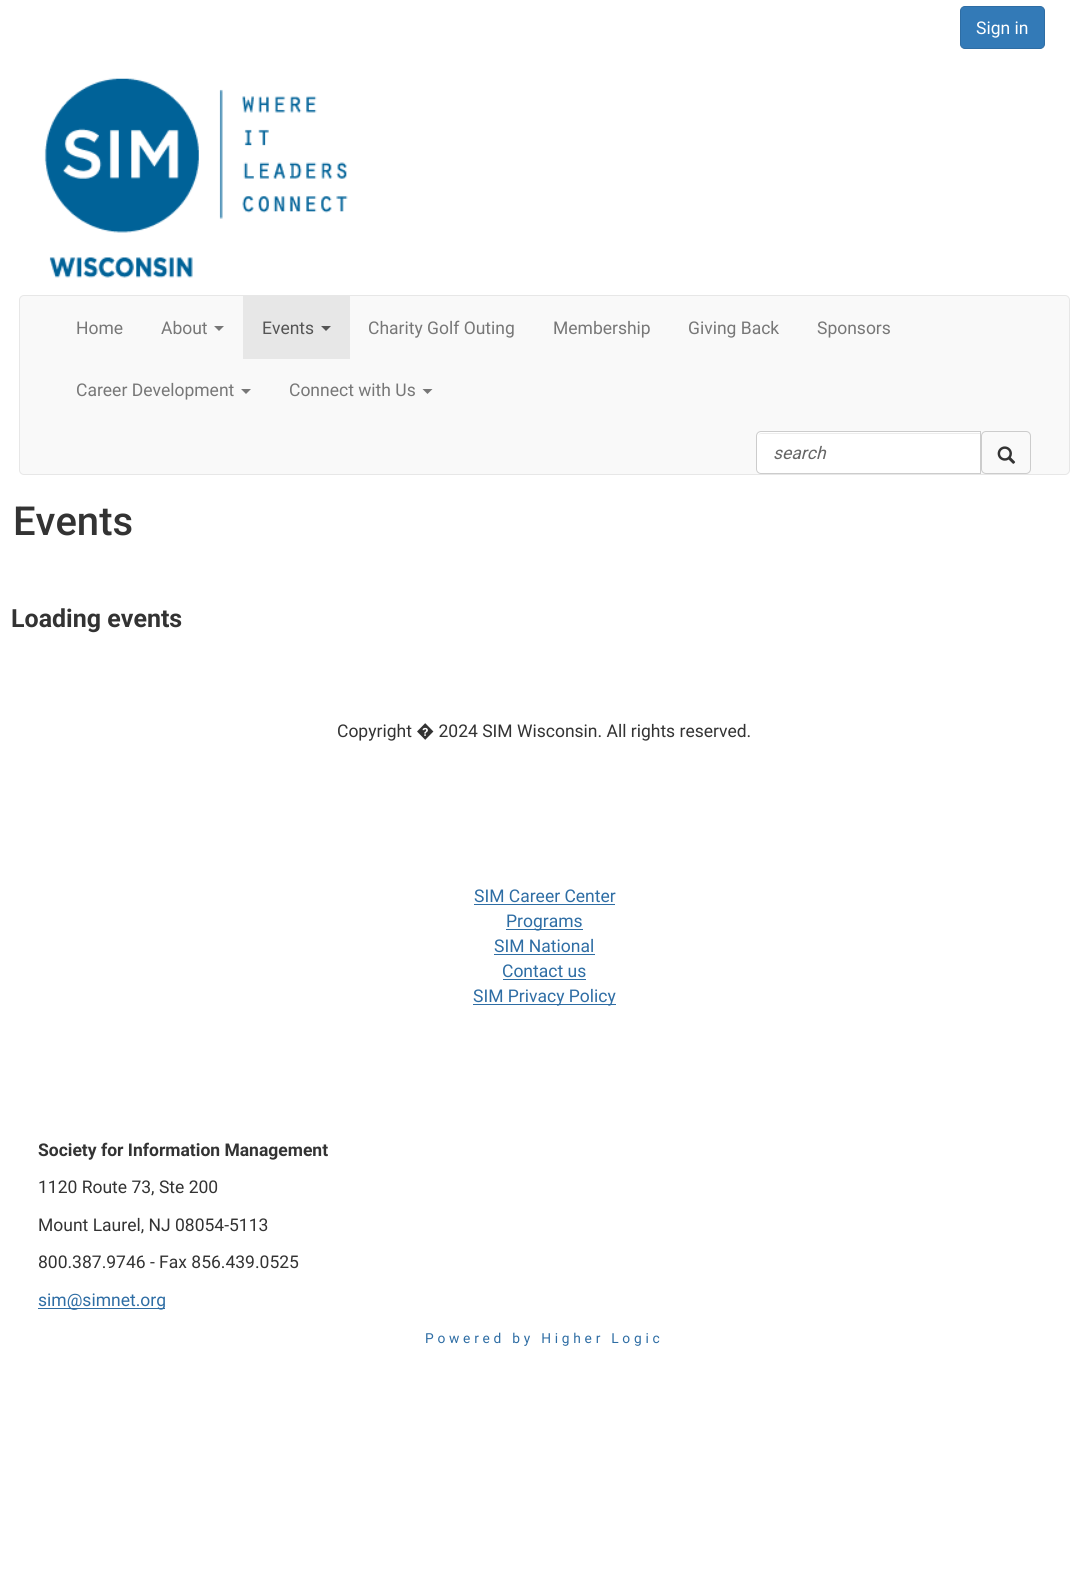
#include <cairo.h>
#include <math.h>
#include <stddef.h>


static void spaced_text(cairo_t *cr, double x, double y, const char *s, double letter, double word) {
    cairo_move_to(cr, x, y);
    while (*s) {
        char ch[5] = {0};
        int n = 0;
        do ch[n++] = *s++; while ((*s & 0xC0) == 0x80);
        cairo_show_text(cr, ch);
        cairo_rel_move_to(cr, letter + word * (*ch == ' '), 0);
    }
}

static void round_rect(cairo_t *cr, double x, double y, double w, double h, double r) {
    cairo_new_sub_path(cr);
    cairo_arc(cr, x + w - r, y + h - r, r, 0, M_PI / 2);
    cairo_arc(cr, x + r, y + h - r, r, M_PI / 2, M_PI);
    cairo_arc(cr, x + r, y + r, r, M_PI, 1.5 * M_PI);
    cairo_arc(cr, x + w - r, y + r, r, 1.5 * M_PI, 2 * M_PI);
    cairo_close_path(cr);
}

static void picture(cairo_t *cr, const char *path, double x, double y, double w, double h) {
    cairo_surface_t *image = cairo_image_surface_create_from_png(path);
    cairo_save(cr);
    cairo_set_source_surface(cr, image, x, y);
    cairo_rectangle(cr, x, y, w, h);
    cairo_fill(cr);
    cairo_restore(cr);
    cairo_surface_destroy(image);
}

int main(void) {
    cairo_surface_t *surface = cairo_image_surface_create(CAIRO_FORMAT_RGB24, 1088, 1577);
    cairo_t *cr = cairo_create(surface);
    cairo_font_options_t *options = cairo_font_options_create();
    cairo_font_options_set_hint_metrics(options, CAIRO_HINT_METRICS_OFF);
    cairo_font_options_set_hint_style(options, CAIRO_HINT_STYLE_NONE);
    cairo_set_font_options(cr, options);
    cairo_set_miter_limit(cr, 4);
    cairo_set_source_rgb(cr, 1, 1, 1);
    cairo_paint(cr);
    cairo_set_source_rgb(cr, 0.2, 0.478, 0.718);
    round_rect(cr, 960.5, 6.5, 84, 42, 4.5);
    cairo_fill_preserve(cr);
    cairo_set_source_rgb(cr, 0.18, 0.427, 0.643);
    cairo_set_line_width(cr, 1);
    cairo_stroke(cr);
    cairo_select_font_face(cr, "Roboto", CAIRO_FONT_SLANT_NORMAL, CAIRO_FONT_WEIGHT_NORMAL);
    cairo_set_font_size(cr, 17.5);
    cairo_set_source_rgb(cr, 1, 1, 1);
    cairo_move_to(cr, 976, 34);
    cairo_show_text(cr, "Sign in");
    picture(cr, "img1.png", 44, 78, 304, 200);
    cairo_set_source_rgb(cr, 0.973, 0.973, 0.973);
    round_rect(cr, 19.5, 295.5, 1050, 179, 4.5);
    cairo_fill_preserve(cr);
    cairo_set_source_rgb(cr, 0.906, 0.906, 0.906);
    cairo_stroke(cr);
    cairo_set_source_rgb(cr, 0.467, 0.467, 0.467);
    cairo_move_to(cr, 76, 334);
    cairo_show_text(cr, "Home");
    cairo_move_to(cr, 161, 334);
    cairo_show_text(cr, "About");
    cairo_new_path(cr);
    cairo_move_to(cr, 214, 326);
    cairo_line_to(cr, 224, 326);
    cairo_line_to(cr, 219, 331);
    cairo_close_path(cr);
    cairo_fill(cr);
    cairo_set_source_rgb(cr, 0.906, 0.906, 0.906);
    cairo_rectangle(cr, 243, 296, 107, 63);
    cairo_fill(cr);
    cairo_set_source_rgb(cr, 0.333, 0.333, 0.333);
    cairo_move_to(cr, 262, 334);
    cairo_show_text(cr, "Events");
    cairo_new_path(cr);
    cairo_move_to(cr, 321, 326);
    cairo_line_to(cr, 331, 326);
    cairo_line_to(cr, 326, 331);
    cairo_close_path(cr);
    cairo_fill(cr);
    cairo_set_source_rgb(cr, 0.467, 0.467, 0.467);
    cairo_move_to(cr, 368, 334);
    cairo_show_text(cr, "Charity Golf Outing");
    cairo_move_to(cr, 553, 334);
    cairo_show_text(cr, "Membership");
    cairo_move_to(cr, 688, 334);
    cairo_show_text(cr, "Giving Back");
    cairo_move_to(cr, 817, 334);
    cairo_show_text(cr, "Sponsors");
    cairo_move_to(cr, 76, 396);
    cairo_show_text(cr, "Career Development");
    cairo_new_path(cr);
    cairo_move_to(cr, 241, 389);
    cairo_line_to(cr, 251, 389);
    cairo_line_to(cr, 246, 394);
    cairo_close_path(cr);
    cairo_fill(cr);
    cairo_move_to(cr, 289, 396);
    cairo_show_text(cr, "Connect with Us");
    cairo_new_path(cr);
    cairo_move_to(cr, 422.5, 389);
    cairo_line_to(cr, 432.5, 389);
    cairo_line_to(cr, 427.5, 394);
    cairo_close_path(cr);
    cairo_fill(cr);
    cairo_set_source_rgb(cr, 1, 1, 1);
    cairo_new_path(cr);
    cairo_move_to(cr, 761, 431);
    cairo_line_to(cr, 981, 431);
    cairo_line_to(cr, 981, 474);
    cairo_line_to(cr, 761, 474);
    cairo_curve_to(cr, 758, 474, 756, 472, 756, 469);
    cairo_line_to(cr, 756, 436);
    cairo_curve_to(cr, 756, 433, 758, 431, 761, 431);
    cairo_close_path(cr);
    cairo_fill(cr);
    cairo_set_source_rgb(cr, 0.925, 0.925, 0.925);
    cairo_new_path(cr);
    cairo_move_to(cr, 761, 434);
    cairo_line_to(cr, 980, 434);
    cairo_line_to(cr, 980, 433);
    cairo_line_to(cr, 762, 433);
    cairo_curve_to(cr, 759, 433, 758, 435, 758, 438);
    cairo_curve_to(cr, 758, 435, 759, 434, 761, 434);
    cairo_close_path(cr);
    cairo_fill(cr);
    cairo_new_path(cr);
    cairo_move_to(cr, 761, 431.5);
    cairo_line_to(cr, 980.5, 431.5);
    cairo_line_to(cr, 980.5, 473.5);
    cairo_line_to(cr, 761, 473.5);
    cairo_curve_to(cr, 758.5, 473.5, 756.5, 471.5, 756.5, 469);
    cairo_line_to(cr, 756.5, 436);
    cairo_curve_to(cr, 756.5, 433.5, 758.5, 431.5, 761, 431.5);
    cairo_close_path(cr);
    cairo_set_source_rgb(cr, 0.8, 0.8, 0.8);
    cairo_stroke(cr);
    cairo_select_font_face(cr, "Roboto", CAIRO_FONT_SLANT_ITALIC, CAIRO_FONT_WEIGHT_NORMAL);
    cairo_set_source_rgb(cr, 0.4, 0.4, 0.4);
    cairo_move_to(cr, 773, 459);
    cairo_show_text(cr, "search");
    round_rect(cr, 981.5, 431.5, 49, 42, 4.5);
    cairo_set_source_rgb(cr, 0.8, 0.8, 0.8);
    cairo_stroke(cr);
    picture(cr, "img2.png", 997, 446, 19, 18);
    cairo_select_font_face(cr, "Roboto Medium", CAIRO_FONT_SLANT_NORMAL, CAIRO_FONT_WEIGHT_NORMAL);
    cairo_set_font_size(cr, 40);
    cairo_set_source_rgb(cr, 0.2, 0.2, 0.2);
    cairo_move_to(cr, 13, 535);
    cairo_show_text(cr, "Events");
    cairo_select_font_face(cr, "Roboto", CAIRO_FONT_SLANT_NORMAL, CAIRO_FONT_WEIGHT_BOLD);
    cairo_set_font_size(cr, 25);
    cairo_move_to(cr, 11, 627);
    cairo_show_text(cr, "Loading events");
    cairo_select_font_face(cr, "Roboto", CAIRO_FONT_SLANT_NORMAL, CAIRO_FONT_WEIGHT_NORMAL);
    cairo_set_font_size(cr, 17.5);
    cairo_move_to(cr, 337, 737);
    cairo_show_text(cr, "Copyright � 2024 SIM Wisconsin. All rights reserved.");
    cairo_set_source_rgb(cr, 0.18, 0.427, 0.643);
    cairo_move_to(cr, 474, 902);
    cairo_show_text(cr, "SIM Career Center");
    cairo_rectangle(cr, 474, 904, 141, 1);
    cairo_fill(cr);
    cairo_rectangle(cr, 506, 929, 77, 1);
    cairo_fill(cr);
    cairo_move_to(cr, 506, 927);
    cairo_show_text(cr, "Programs");
    cairo_move_to(cr, 494, 952);
    cairo_show_text(cr, "SIM National");
    cairo_rectangle(cr, 494, 954, 101, 1);
    cairo_fill(cr);
    cairo_move_to(cr, 502, 977);
    cairo_show_text(cr, "Contact us");
    cairo_rectangle(cr, 503, 979, 83, 1);
    cairo_fill(cr);
    cairo_rectangle(cr, 473, 1004, 143, 1);
    cairo_fill(cr);
    cairo_move_to(cr, 473, 1002);
    cairo_show_text(cr, "SIM Privacy Policy");
    cairo_select_font_face(cr, "Roboto", CAIRO_FONT_SLANT_NORMAL, CAIRO_FONT_WEIGHT_BOLD);
    cairo_set_source_rgb(cr, 0.2, 0.2, 0.2);
    cairo_move_to(cr, 38, 1156);
    cairo_show_text(cr, "Society for Information Management");
    cairo_select_font_face(cr, "Roboto", CAIRO_FONT_SLANT_NORMAL, CAIRO_FONT_WEIGHT_NORMAL);
    cairo_move_to(cr, 38, 1193);
    cairo_show_text(cr, "1120 Route 73, Ste 200");
    cairo_move_to(cr, 38, 1231);
    cairo_show_text(cr, "Mount Laurel, NJ 08054-5113");
    cairo_move_to(cr, 38, 1268);
    cairo_show_text(cr, "800.387.9746 - Fax 856.439.0525");
    cairo_set_source_rgb(cr, 0.18, 0.427, 0.643);
    cairo_rectangle(cr, 38, 1308, 127, 1);
    cairo_fill(cr);
    cairo_move_to(cr, 38, 1306);
    cairo_show_text(cr, "sim@simnet.org");
    cairo_set_font_size(cr, 13.75);
    spaced_text(cr, 425, 1343, "Powered by Higher Logic", 3.75, 0);
    cairo_surface_write_to_png(surface, "page.png");
    cairo_font_options_destroy(options);
    cairo_destroy(cr);
    cairo_surface_destroy(surface);
    return 0;
}
